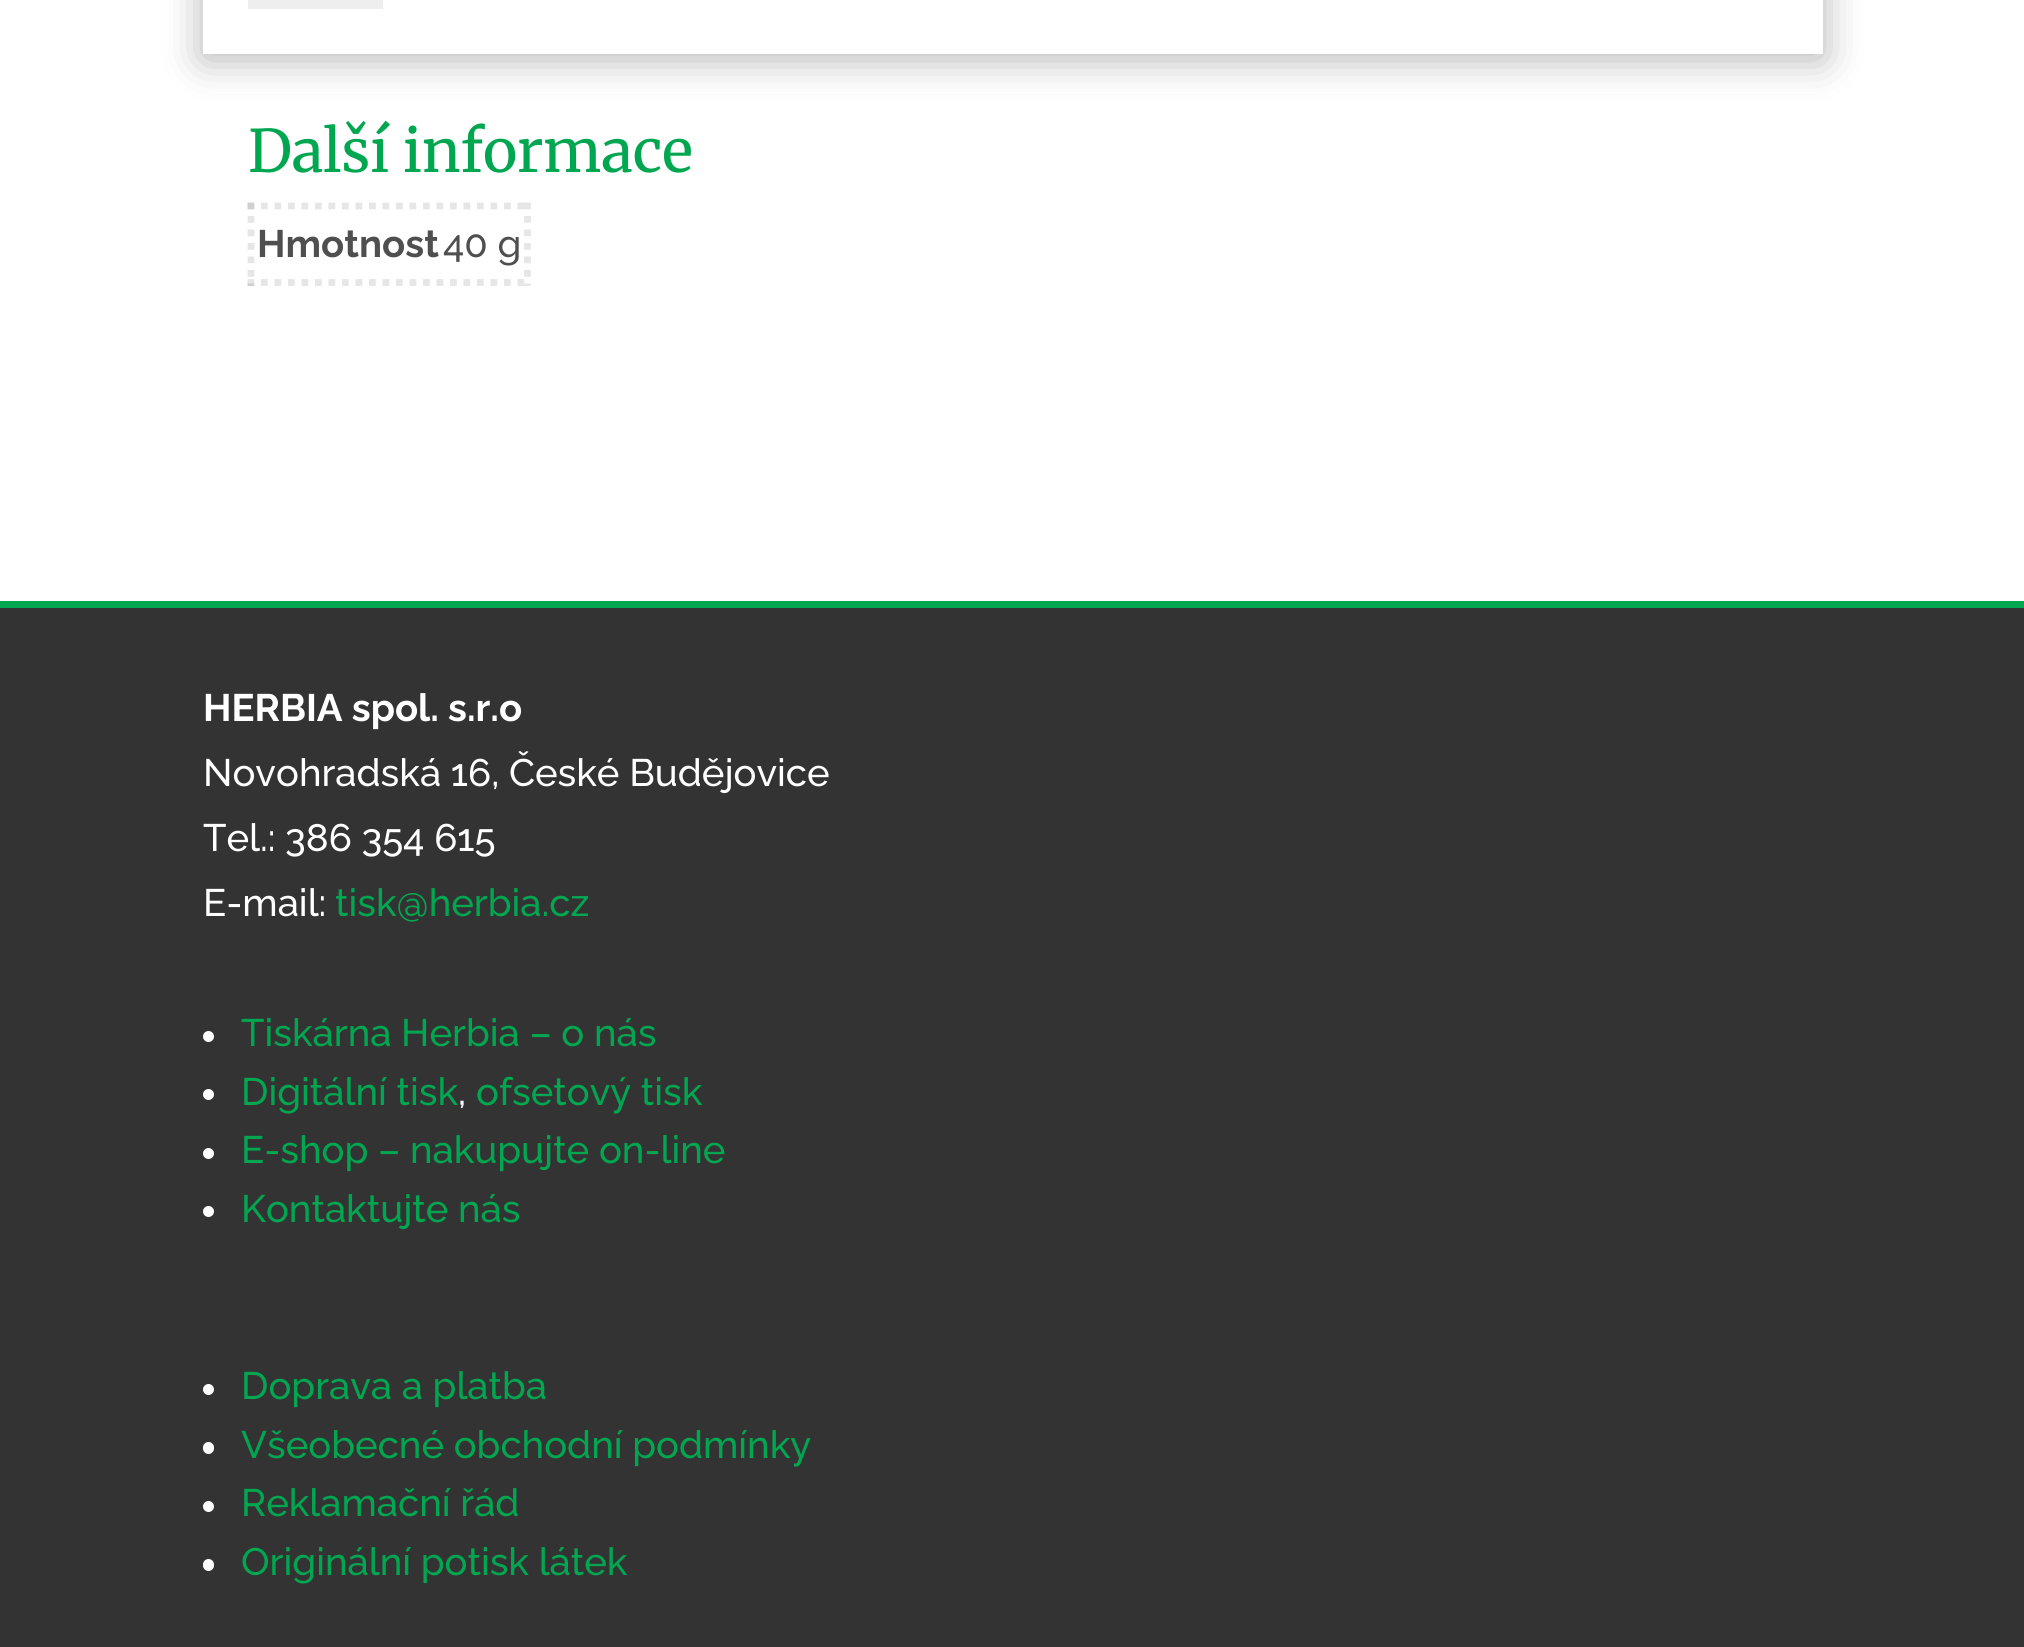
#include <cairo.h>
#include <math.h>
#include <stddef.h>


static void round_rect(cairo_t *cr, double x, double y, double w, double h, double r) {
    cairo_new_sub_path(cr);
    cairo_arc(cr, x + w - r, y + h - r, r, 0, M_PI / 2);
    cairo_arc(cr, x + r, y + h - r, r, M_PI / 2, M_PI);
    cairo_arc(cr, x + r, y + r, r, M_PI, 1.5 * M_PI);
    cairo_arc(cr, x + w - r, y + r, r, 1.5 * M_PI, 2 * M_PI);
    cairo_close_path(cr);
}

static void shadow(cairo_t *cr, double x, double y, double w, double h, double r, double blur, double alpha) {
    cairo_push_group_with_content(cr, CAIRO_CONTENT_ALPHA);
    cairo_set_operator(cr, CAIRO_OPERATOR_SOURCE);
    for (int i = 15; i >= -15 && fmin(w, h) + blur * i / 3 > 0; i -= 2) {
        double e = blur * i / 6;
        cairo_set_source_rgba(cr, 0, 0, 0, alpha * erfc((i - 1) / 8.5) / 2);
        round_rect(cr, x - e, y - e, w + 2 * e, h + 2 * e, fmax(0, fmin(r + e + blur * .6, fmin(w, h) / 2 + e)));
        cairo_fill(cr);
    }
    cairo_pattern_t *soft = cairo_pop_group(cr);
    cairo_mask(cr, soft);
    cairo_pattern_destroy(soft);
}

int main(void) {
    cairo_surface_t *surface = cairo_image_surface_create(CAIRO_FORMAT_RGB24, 2024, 1647);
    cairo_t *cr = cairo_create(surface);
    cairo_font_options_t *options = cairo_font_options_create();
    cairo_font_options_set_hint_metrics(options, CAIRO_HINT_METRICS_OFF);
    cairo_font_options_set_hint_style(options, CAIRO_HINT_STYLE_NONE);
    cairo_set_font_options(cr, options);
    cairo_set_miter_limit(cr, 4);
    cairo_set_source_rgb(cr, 1, 1, 1);
    cairo_paint(cr);
    cairo_save(cr);
    cairo_set_fill_rule(cr, CAIRO_FILL_RULE_EVEN_ODD);
    cairo_new_path(cr);
    cairo_move_to(cr, 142, 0);
    cairo_line_to(cr, 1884, 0);
    cairo_line_to(cr, 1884, 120);
    cairo_line_to(cr, 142, 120);
    cairo_close_path(cr);
    cairo_move_to(cr, 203, -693);
    cairo_line_to(cr, 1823, -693);
    cairo_line_to(cr, 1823, 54);
    cairo_line_to(cr, 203, 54);
    cairo_close_path(cr);
    cairo_clip(cr);
    cairo_set_source_rgb(cr, 0, 0, 0);
    shadow(cr, 203, -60, 1620, 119, 0, 20, 0.3);
    cairo_restore(cr);
    cairo_set_source_rgb(cr, 0.933, 0.933, 0.933);
    cairo_rectangle(cr, 248, 0, 135, 9);
    cairo_fill(cr);
    cairo_select_font_face(cr, "Merriweather Light", CAIRO_FONT_SLANT_NORMAL, CAIRO_FONT_WEIGHT_NORMAL);
    cairo_set_font_size(cr, 58.5);
    cairo_set_source_rgb(cr, 0, 0.651, 0.314);
    cairo_move_to(cr, 248, 172);
    cairo_show_text(cr, "Další informace");
    cairo_new_path(cr);
    cairo_move_to(cr, 247.5, 206);
    cairo_line_to(cr, 531, 206);
    cairo_set_source_rgb(cr, 0.902, 0.902, 0.902);
    cairo_set_line_width(cr, 6.8);
    cairo_set_dash(cr, (double[]){6.75, 6.75}, 2, 0);
    cairo_stroke(cr);
    cairo_new_path(cr);
    cairo_move_to(cr, 527.5, 202.5);
    cairo_line_to(cr, 527.5, 286);
    cairo_set_source_rgba(cr, 0, 0, 0, 0.1);
    cairo_stroke(cr);
    cairo_new_path(cr);
    cairo_move_to(cr, 247.5, 282.5);
    cairo_line_to(cr, 531, 282.5);
    cairo_set_source_rgb(cr, 0.902, 0.902, 0.902);
    cairo_stroke(cr);
    cairo_new_path(cr);
    cairo_move_to(cr, 251, 202.5);
    cairo_line_to(cr, 251, 286);
    cairo_set_source_rgba(cr, 0, 0, 0, 0.1);
    cairo_stroke(cr);
    cairo_select_font_face(cr, "Raleway Thin", CAIRO_FONT_SLANT_NORMAL, CAIRO_FONT_WEIGHT_NORMAL);
    cairo_set_font_size(cr, 38.25);
    cairo_set_source_rgb(cr, 0.31, 0.31, 0.31);
    cairo_move_to(cr, 257, 257);
    cairo_show_text(cr, "Hmotnost");
    cairo_select_font_face(cr, "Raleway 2 Thin", CAIRO_FONT_SLANT_NORMAL, CAIRO_FONT_WEIGHT_NORMAL);
    cairo_move_to(cr, 443, 257);
    cairo_show_text(cr, "40 g");
    cairo_set_source_rgb(cr, 0.2, 0.2, 0.2);
    cairo_rectangle(cr, 0, 608, 2024, 1039);
    cairo_fill(cr);
    cairo_set_source_rgb(cr, 0, 0.651, 0.314);
    cairo_rectangle(cr, 0, 601, 2024, 7);
    cairo_fill(cr);
    cairo_select_font_face(cr, "Raleway Thin", CAIRO_FONT_SLANT_NORMAL, CAIRO_FONT_WEIGHT_NORMAL);
    cairo_set_source_rgb(cr, 1, 1, 1);
    cairo_move_to(cr, 203, 721);
    cairo_show_text(cr, "HERBIA spol. s.r.o");
    cairo_select_font_face(cr, "Raleway 2 Thin", CAIRO_FONT_SLANT_NORMAL, CAIRO_FONT_WEIGHT_NORMAL);
    cairo_move_to(cr, 203, 786);
    cairo_show_text(cr, "Novohradská 16, České Budějovice");
    cairo_move_to(cr, 203, 851);
    cairo_show_text(cr, "Tel.: 386 354 615");
    cairo_move_to(cr, 203, 916);
    cairo_show_text(cr, "E-mail:");
    cairo_set_source_rgb(cr, 0, 0.651, 0.314);
    cairo_move_to(cr, 335, 916);
    cairo_show_text(cr, "tisk@herbia.cz");
    cairo_set_source_rgb(cr, 1, 1, 1);
    cairo_new_path(cr);
    cairo_arc(cr, 208.5, 1036.5, 5.5, 0, 2 * M_PI);
    cairo_fill(cr);
    cairo_set_source_rgb(cr, 0, 0.651, 0.314);
    cairo_move_to(cr, 241, 1046);
    cairo_show_text(cr, "Tiskárna Herbia – o nás");
    cairo_set_source_rgb(cr, 1, 1, 1);
    cairo_new_path(cr);
    cairo_arc(cr, 208.5, 1094.5, 5.5, 0, 2 * M_PI);
    cairo_fill(cr);
    cairo_set_source_rgb(cr, 0, 0.651, 0.314);
    cairo_move_to(cr, 241, 1105);
    cairo_show_text(cr, "Digitální tisk");
    cairo_move_to(cr, 476, 1105);
    cairo_show_text(cr, "ofsetový tisk");
    cairo_set_source_rgb(cr, 1, 1, 1);
    cairo_move_to(cr, 458, 1105);
    cairo_show_text(cr, ",");
    cairo_new_path(cr);
    cairo_arc(cr, 208.5, 1153.5, 5.5, 0, 2 * M_PI);
    cairo_fill(cr);
    cairo_set_source_rgb(cr, 0, 0.651, 0.314);
    cairo_move_to(cr, 241, 1163);
    cairo_show_text(cr, "E-shop – nakupujte on-line");
    cairo_set_source_rgb(cr, 1, 1, 1);
    cairo_new_path(cr);
    cairo_arc(cr, 208.5, 1211.5, 5.5, 0, 2 * M_PI);
    cairo_fill(cr);
    cairo_set_source_rgb(cr, 0, 0.651, 0.314);
    cairo_move_to(cr, 241, 1222);
    cairo_show_text(cr, "Kontaktujte nás");
    cairo_set_source_rgb(cr, 1, 1, 1);
    cairo_new_path(cr);
    cairo_arc(cr, 208.5, 1389.5, 5.5, 0, 2 * M_PI);
    cairo_fill(cr);
    cairo_set_source_rgb(cr, 0, 0.651, 0.314);
    cairo_move_to(cr, 241, 1399);
    cairo_show_text(cr, "Doprava a platba");
    cairo_set_source_rgb(cr, 1, 1, 1);
    round_rect(cr, 203, 1442, 11, 12, 5.5);
    cairo_fill(cr);
    cairo_set_source_rgb(cr, 0, 0.651, 0.314);
    cairo_move_to(cr, 241, 1458);
    cairo_show_text(cr, "Všeobecné obchodní podmínky");
    cairo_set_source_rgb(cr, 1, 1, 1);
    cairo_new_path(cr);
    cairo_arc(cr, 208.5, 1506.5, 5.5, 0, 2 * M_PI);
    cairo_fill(cr);
    cairo_set_source_rgb(cr, 0, 0.651, 0.314);
    cairo_move_to(cr, 241, 1516);
    cairo_show_text(cr, "Reklamační řád");
    cairo_set_source_rgb(cr, 1, 1, 1);
    round_rect(cr, 203, 1559, 11, 12, 5.5);
    cairo_fill(cr);
    cairo_set_source_rgb(cr, 0, 0.651, 0.314);
    cairo_move_to(cr, 241, 1575);
    cairo_show_text(cr, "Originální potisk látek");
    cairo_surface_write_to_png(surface, "page.png");
    cairo_font_options_destroy(options);
    cairo_destroy(cr);
    cairo_surface_destroy(surface);
    return 0;
}
